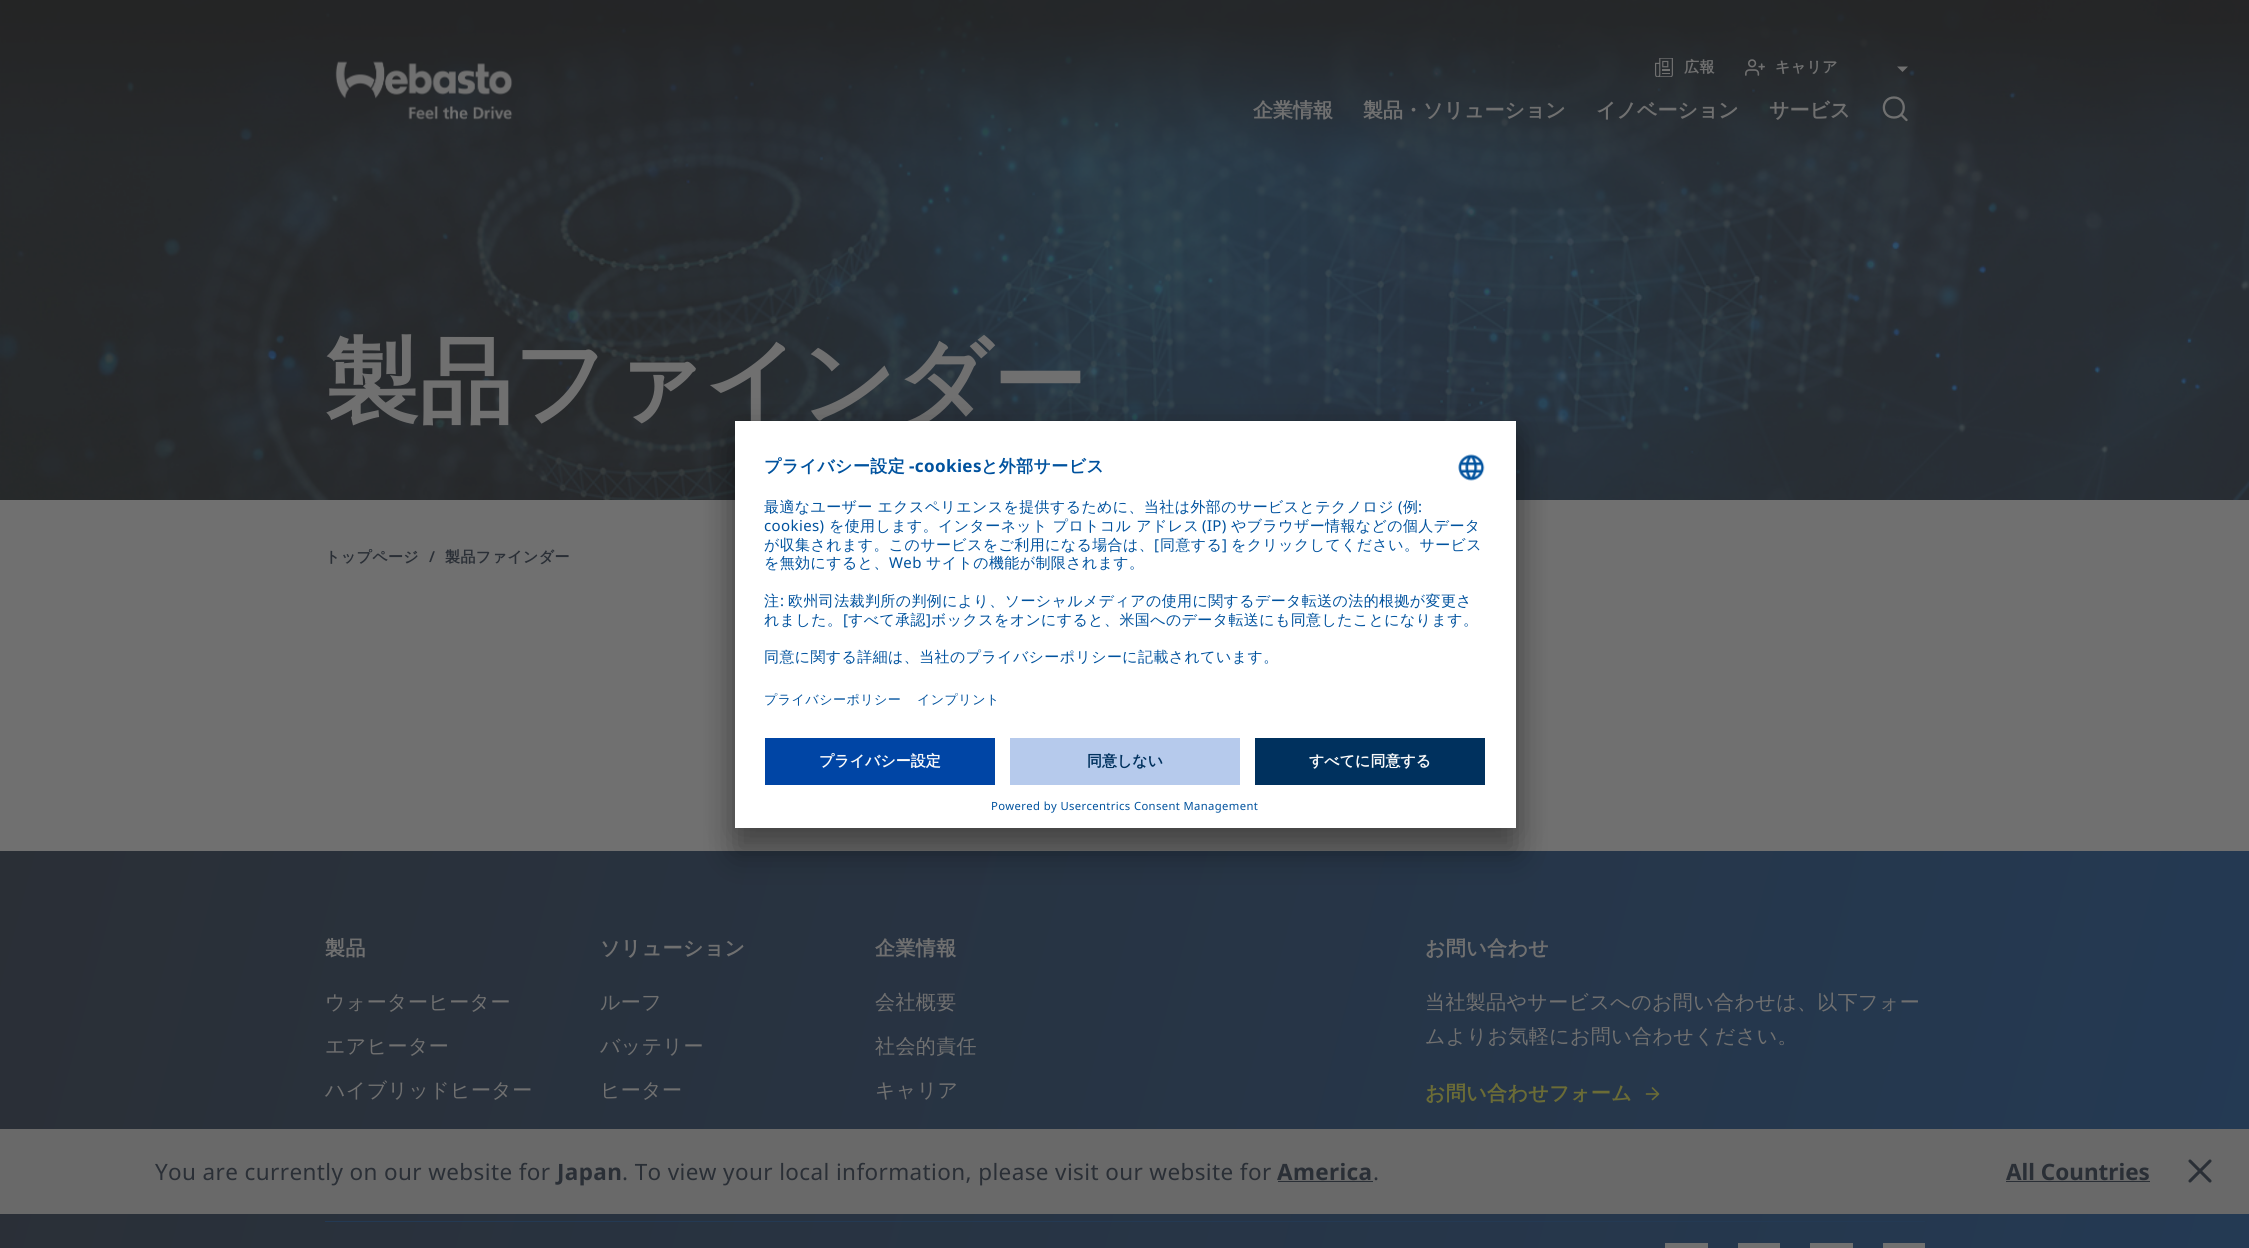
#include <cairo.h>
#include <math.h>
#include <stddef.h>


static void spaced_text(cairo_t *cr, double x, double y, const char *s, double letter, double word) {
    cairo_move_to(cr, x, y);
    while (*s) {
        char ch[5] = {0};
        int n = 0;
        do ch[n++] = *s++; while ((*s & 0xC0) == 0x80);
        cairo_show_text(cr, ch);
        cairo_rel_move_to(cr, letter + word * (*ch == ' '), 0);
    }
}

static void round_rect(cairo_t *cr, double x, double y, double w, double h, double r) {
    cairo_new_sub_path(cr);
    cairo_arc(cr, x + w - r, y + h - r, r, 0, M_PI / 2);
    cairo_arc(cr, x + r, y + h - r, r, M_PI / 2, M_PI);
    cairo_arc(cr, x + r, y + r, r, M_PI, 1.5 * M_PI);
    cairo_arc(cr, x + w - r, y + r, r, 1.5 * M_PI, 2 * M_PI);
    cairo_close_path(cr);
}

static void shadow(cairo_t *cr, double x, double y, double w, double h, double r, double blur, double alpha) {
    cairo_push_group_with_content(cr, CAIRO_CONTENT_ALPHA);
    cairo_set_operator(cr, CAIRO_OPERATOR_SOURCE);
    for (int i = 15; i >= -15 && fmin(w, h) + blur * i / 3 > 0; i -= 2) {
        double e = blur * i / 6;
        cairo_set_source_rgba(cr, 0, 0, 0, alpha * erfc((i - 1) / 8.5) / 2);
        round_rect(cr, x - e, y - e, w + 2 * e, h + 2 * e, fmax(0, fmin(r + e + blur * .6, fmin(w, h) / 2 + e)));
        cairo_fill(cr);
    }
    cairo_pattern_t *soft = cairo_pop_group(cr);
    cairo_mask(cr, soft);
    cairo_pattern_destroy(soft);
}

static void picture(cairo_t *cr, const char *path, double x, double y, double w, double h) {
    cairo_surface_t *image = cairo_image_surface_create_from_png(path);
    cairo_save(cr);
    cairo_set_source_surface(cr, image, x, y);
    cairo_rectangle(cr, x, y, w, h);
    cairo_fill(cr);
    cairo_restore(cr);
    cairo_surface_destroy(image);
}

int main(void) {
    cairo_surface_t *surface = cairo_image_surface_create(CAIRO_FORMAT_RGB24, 2249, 1248);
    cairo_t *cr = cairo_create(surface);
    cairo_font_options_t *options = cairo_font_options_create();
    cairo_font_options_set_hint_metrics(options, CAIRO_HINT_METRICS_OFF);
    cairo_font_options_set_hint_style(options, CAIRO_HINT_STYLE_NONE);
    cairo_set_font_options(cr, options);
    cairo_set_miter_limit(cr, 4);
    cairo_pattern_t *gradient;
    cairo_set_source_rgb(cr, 0.439, 0.439, 0.439);
    cairo_paint(cr);
    picture(cr, "img4.png", 0, 0, 2249, 500);
    picture(cr, "img1.png", 335, 61, 178, 59);
    picture(cr, "img2.png", 1655, 58, 18, 19);
    cairo_select_font_face(cr, "WenQuanYi Zen Hei", CAIRO_FONT_SLANT_NORMAL, CAIRO_FONT_WEIGHT_BOLD);
    cairo_set_font_size(cr, 15);
    cairo_set_source_rgb(cr, 0.439, 0.439, 0.439);
    spaced_text(cr, 1684, 72, "広報", 0.38, 0);
    picture(cr, "img3.png", 1745, 59, 20, 17);
    spaced_text(cr, 1775, 72, "キャリア", 0.38, 0);
    cairo_new_path(cr);
    cairo_move_to(cr, 1902.5, 72);
    cairo_line_to(cr, 1897, 66.5);
    cairo_line_to(cr, 1908, 66.5);
    cairo_close_path(cr);
    cairo_fill(cr);
    cairo_set_font_size(cr, 20);
    cairo_move_to(cr, 1253, 117);
    cairo_show_text(cr, "企業情報");
    cairo_move_to(cr, 1363, 117);
    cairo_show_text(cr, "製品・ソリューション");
    cairo_move_to(cr, 1596, 117);
    cairo_show_text(cr, "イノベーション");
    cairo_move_to(cr, 1769, 117);
    cairo_show_text(cr, "サービス");
    cairo_new_path(cr);
    cairo_move_to(cr, 1894, 117.5);
    cairo_curve_to(cr, 1907, 117.5, 1907, 97.5, 1894, 97.5);
    cairo_curve_to(cr, 1880.5, 97.5, 1880.5, 117.5, 1894, 117.5);
    cairo_close_path(cr);
    cairo_move_to(cr, 1906.5, 120);
    cairo_line_to(cr, 1901, 114.5);
    cairo_set_line_width(cr, 2.3);
    cairo_set_line_cap(cr, CAIRO_LINE_CAP_ROUND);
    cairo_set_line_join(cr, CAIRO_LINE_JOIN_ROUND);
    cairo_stroke(cr);
    cairo_set_font_size(cr, 93.75);
    cairo_move_to(cr, 325, 414);
    cairo_show_text(cr, "製品ファインダー");
    cairo_set_font_size(cr, 15);
    cairo_set_source_rgb(cr, 0.165, 0.184, 0.212);
    spaced_text(cr, 325, 562, "トップページ", 0.38, 0);
    cairo_select_font_face(cr, "Noto Sans SemiBold", CAIRO_FONT_SLANT_NORMAL, CAIRO_FONT_WEIGHT_NORMAL);
    spaced_text(cr, 429, 562, "/", 0.38, 0);
    cairo_select_font_face(cr, "WenQuanYi Zen Hei", CAIRO_FONT_SLANT_NORMAL, CAIRO_FONT_WEIGHT_BOLD);
    spaced_text(cr, 445, 562, "製品ファインダー", 0.38, 0);
    gradient = cairo_pattern_create_linear(14, 799, 2236, 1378);
    cairo_pattern_add_color_stop_rgba(gradient, 0, 0.165, 0.184, 0.212, 1);
    cairo_pattern_add_color_stop_rgba(gradient, 1, 0.141, 0.227, 0.329, 1);
    cairo_set_source(cr, gradient);
    cairo_pattern_destroy(gradient);
    cairo_rectangle(cr, 0, 851, 2249, 397);
    cairo_fill(cr);
    cairo_set_font_size(cr, 20);
    cairo_set_source_rgb(cr, 0.439, 0.439, 0.439);
    spaced_text(cr, 325, 955, "製品", 0.38, 0);
    cairo_select_font_face(cr, "WenQuanYi Zen Hei Medium", CAIRO_FONT_SLANT_NORMAL, CAIRO_FONT_WEIGHT_NORMAL);
    spaced_text(cr, 325, 1009, "ウォーターヒーター", 0.38, 0);
    spaced_text(cr, 325, 1053, "エアヒーター", 0.38, 0);
    spaced_text(cr, 325, 1097, "ハイブリッドヒーター", 0.38, 0);
    cairo_select_font_face(cr, "WenQuanYi Zen Hei", CAIRO_FONT_SLANT_NORMAL, CAIRO_FONT_WEIGHT_BOLD);
    spaced_text(cr, 600, 955, "ソリューション", 0.38, 0);
    cairo_select_font_face(cr, "WenQuanYi Zen Hei Medium", CAIRO_FONT_SLANT_NORMAL, CAIRO_FONT_WEIGHT_NORMAL);
    spaced_text(cr, 600, 1009, "ルーフ", 0.38, 0);
    spaced_text(cr, 600, 1053, "バッテリー", 0.38, 0);
    spaced_text(cr, 600, 1097, "ヒーター", 0.38, 0);
    cairo_select_font_face(cr, "WenQuanYi Zen Hei", CAIRO_FONT_SLANT_NORMAL, CAIRO_FONT_WEIGHT_BOLD);
    spaced_text(cr, 875, 955, "企業情報", 0.38, 0);
    cairo_select_font_face(cr, "WenQuanYi Zen Hei Medium", CAIRO_FONT_SLANT_NORMAL, CAIRO_FONT_WEIGHT_NORMAL);
    spaced_text(cr, 875, 1009, "会社概要", 0.38, 0);
    spaced_text(cr, 875, 1053, "社会的責任", 0.38, 0);
    spaced_text(cr, 875, 1097, "キャリア", 0.38, 0);
    cairo_select_font_face(cr, "WenQuanYi Zen Hei", CAIRO_FONT_SLANT_NORMAL, CAIRO_FONT_WEIGHT_BOLD);
    spaced_text(cr, 1425, 955, "お問い合わせ", 0.38, 0);
    cairo_select_font_face(cr, "WenQuanYi Zen Hei Medium", CAIRO_FONT_SLANT_NORMAL, CAIRO_FONT_WEIGHT_NORMAL);
    spaced_text(cr, 1425, 1009, "当社製品やサービスへのお問い合わせは、以下フォー", 0.38, 0);
    spaced_text(cr, 1425, 1043, "ムよりお気軽にお問い合わせください。", 0.38, 0);
    cairo_select_font_face(cr, "WenQuanYi Zen Hei", CAIRO_FONT_SLANT_NORMAL, CAIRO_FONT_WEIGHT_BOLD);
    cairo_set_source_rgb(cr, 0.42, 0.424, 0.212);
    spaced_text(cr, 1425, 1100, "お問い合わせフォーム", 0.38, 0);
    cairo_new_path(cr);
    cairo_move_to(cr, 1646.5, 1094);
    cairo_line_to(cr, 1658.5, 1094);
    cairo_move_to(cr, 1652.5, 1088);
    cairo_line_to(cr, 1658.5, 1094);
    cairo_line_to(cr, 1652.5, 1099.5);
    cairo_set_line_width(cr, 1.6);
    cairo_stroke(cr);
    cairo_set_source_rgb(cr, 0.141, 0.227, 0.329);
    cairo_rectangle(cr, 325, 1221, 1600, 1);
    cairo_fill(cr);
    cairo_set_source_rgb(cr, 0.439, 0.439, 0.439);
    cairo_rectangle(cr, 1665, 1243, 43, 5);
    cairo_fill(cr);
    cairo_rectangle(cr, 1738, 1243, 42, 5);
    cairo_fill(cr);
    cairo_rectangle(cr, 1810, 1243, 43, 5);
    cairo_fill(cr);
    cairo_rectangle(cr, 1883, 1243, 42, 5);
    cairo_fill(cr);
    cairo_set_source_rgb(cr, 0, 0, 0);
    shadow(cr, 735, 446, 781, 407, 0, 17.5, 0.3);
    shadow(cr, 735, 428, 781, 406, 0, 16, 0.22);
    cairo_set_source_rgb(cr, 1, 1, 1);
    cairo_rectangle(cr, 735, 421, 781, 407);
    cairo_fill(cr);
    cairo_set_font_size(cr, 17);
    cairo_set_source_rgb(cr, 0, 0.322, 0.62);
    spaced_text(cr, 764, 472, "プライバシー設定", 0.38, 0);
    cairo_select_font_face(cr, "Noto Sans", CAIRO_FONT_SLANT_NORMAL, CAIRO_FONT_WEIGHT_BOLD);
    spaced_text(cr, 909, 472, "-cookies", 0.38, 0);
    cairo_select_font_face(cr, "WenQuanYi Zen Hei", CAIRO_FONT_SLANT_NORMAL, CAIRO_FONT_WEIGHT_BOLD);
    spaced_text(cr, 981, 472, "と外部サービス", 0.38, 0);
    picture(cr, "img5.png", 1458, 454, 27, 27);
    cairo_select_font_face(cr, "WenQuanYi Zen Hei Medium", CAIRO_FONT_SLANT_NORMAL, CAIRO_FONT_WEIGHT_NORMAL);
    cairo_set_font_size(cr, 15);
    spaced_text(cr, 764, 512, "最適なユーザー エクスペリエンスを提供するために、当社は外部のサービスとテクノロジ", 0.38, 0);
    cairo_select_font_face(cr, "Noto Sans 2", CAIRO_FONT_SLANT_NORMAL, CAIRO_FONT_WEIGHT_NORMAL);
    spaced_text(cr, 1398, 512, "(", 0.38, 0);
    cairo_select_font_face(cr, "WenQuanYi Zen Hei Medium", CAIRO_FONT_SLANT_NORMAL, CAIRO_FONT_WEIGHT_NORMAL);
    spaced_text(cr, 1403, 512, "例", 0.38, 0);
    cairo_select_font_face(cr, "Noto Sans 2", CAIRO_FONT_SLANT_NORMAL, CAIRO_FONT_WEIGHT_NORMAL);
    spaced_text(cr, 1418, 512, ":", 0.38, 0);
    spaced_text(cr, 764, 531, "cookies)", 0.38, 0);
    cairo_select_font_face(cr, "WenQuanYi Zen Hei Medium", CAIRO_FONT_SLANT_NORMAL, CAIRO_FONT_WEIGHT_NORMAL);
    spaced_text(cr, 829, 531, "を使用します。インターネット プロトコル アドレス", 0.38, 0);
    cairo_select_font_face(cr, "Noto Sans 2", CAIRO_FONT_SLANT_NORMAL, CAIRO_FONT_WEIGHT_NORMAL);
    spaced_text(cr, 1202, 531, "(IP)", 0.38, 0);
    cairo_select_font_face(cr, "WenQuanYi Zen Hei Medium", CAIRO_FONT_SLANT_NORMAL, CAIRO_FONT_WEIGHT_NORMAL);
    spaced_text(cr, 1231, 531, "やブラウザー情報などの個人データ", 0.38, 0);
    spaced_text(cr, 764, 550, "が収集されます。このサービスをご利用になる場合は、", 0.38, 0);
    cairo_select_font_face(cr, "Noto Sans 2", CAIRO_FONT_SLANT_NORMAL, CAIRO_FONT_WEIGHT_NORMAL);
    spaced_text(cr, 1154, 550, "[", 0.38, 0);
    cairo_select_font_face(cr, "WenQuanYi Zen Hei Medium", CAIRO_FONT_SLANT_NORMAL, CAIRO_FONT_WEIGHT_NORMAL);
    spaced_text(cr, 1160, 550, "同意する", 0.38, 0);
    cairo_select_font_face(cr, "Noto Sans 2", CAIRO_FONT_SLANT_NORMAL, CAIRO_FONT_WEIGHT_NORMAL);
    spaced_text(cr, 1222, 550, "]", 0.38, 0);
    cairo_select_font_face(cr, "WenQuanYi Zen Hei Medium", CAIRO_FONT_SLANT_NORMAL, CAIRO_FONT_WEIGHT_NORMAL);
    spaced_text(cr, 1231, 550, "をクリックしてください。サービス", 0.38, 0);
    spaced_text(cr, 764, 568, "を無効にすると、", 0.38, 0);
    cairo_select_font_face(cr, "Noto Sans 2", CAIRO_FONT_SLANT_NORMAL, CAIRO_FONT_WEIGHT_NORMAL);
    spaced_text(cr, 889, 568, "Web", 0.38, 0);
    cairo_select_font_face(cr, "WenQuanYi Zen Hei Medium", CAIRO_FONT_SLANT_NORMAL, CAIRO_FONT_WEIGHT_NORMAL);
    spaced_text(cr, 926, 568, "サイトの機能が制限されます。", 0.38, 0);
    spaced_text(cr, 764, 606, "注", 0.38, 0);
    cairo_select_font_face(cr, "Noto Sans 2", CAIRO_FONT_SLANT_NORMAL, CAIRO_FONT_WEIGHT_NORMAL);
    spaced_text(cr, 780, 606, ":", 0.38, 0);
    cairo_select_font_face(cr, "WenQuanYi Zen Hei Medium", CAIRO_FONT_SLANT_NORMAL, CAIRO_FONT_WEIGHT_NORMAL);
    spaced_text(cr, 788, 606, "欧州司法裁判所の判例により、ソーシャルメディアの使用に関するデータ転送の法的根拠が変更さ", 0.38, 0);
    spaced_text(cr, 764, 625, "れました。", 0.38, 0);
    cairo_select_font_face(cr, "Noto Sans 2", CAIRO_FONT_SLANT_NORMAL, CAIRO_FONT_WEIGHT_NORMAL);
    spaced_text(cr, 843, 625, "[", 0.38, 0);
    cairo_select_font_face(cr, "WenQuanYi Zen Hei Medium", CAIRO_FONT_SLANT_NORMAL, CAIRO_FONT_WEIGHT_NORMAL);
    spaced_text(cr, 848, 625, "すべて承認", 0.38, 0);
    cairo_select_font_face(cr, "Noto Sans 2", CAIRO_FONT_SLANT_NORMAL, CAIRO_FONT_WEIGHT_NORMAL);
    spaced_text(cr, 926, 625, "]", 0.38, 0);
    cairo_select_font_face(cr, "WenQuanYi Zen Hei Medium", CAIRO_FONT_SLANT_NORMAL, CAIRO_FONT_WEIGHT_NORMAL);
    spaced_text(cr, 931, 625, "ボックスをオンにすると、米国へのデータ転送にも同意したことになります。", 0.38, 0);
    spaced_text(cr, 764, 662, "同意に関する詳細は、当社のプライバシーポリシーに記載されています。", 0.38, 0);
    cairo_set_font_size(cr, 13.1);
    spaced_text(cr, 764, 704, "プライバシーポリシー", 0.38, 0);
    spaced_text(cr, 917, 704, "インプリント", 0.38, 0);
    cairo_set_source_rgb(cr, 0, 0.271, 0.647);
    cairo_rectangle(cr, 765, 738, 230, 47);
    cairo_fill(cr);
    cairo_select_font_face(cr, "WenQuanYi Zen Hei", CAIRO_FONT_SLANT_NORMAL, CAIRO_FONT_WEIGHT_BOLD);
    cairo_set_font_size(cr, 15);
    cairo_set_source_rgb(cr, 0.98, 0.98, 0.98);
    cairo_move_to(cr, 819, 766);
    cairo_show_text(cr, "プライバシー設定");
    cairo_set_source_rgb(cr, 0.714, 0.792, 0.922);
    cairo_rectangle(cr, 1010, 738, 230, 47);
    cairo_fill(cr);
    cairo_set_source_rgb(cr, 0, 0.192, 0.369);
    cairo_move_to(cr, 1087, 766);
    cairo_show_text(cr, "同意しない");
    cairo_rectangle(cr, 1255, 738, 230, 47);
    cairo_fill(cr);
    cairo_set_source_rgb(cr, 0.98, 0.98, 0.98);
    cairo_move_to(cr, 1309, 766);
    cairo_show_text(cr, "すべてに同意する");
    cairo_select_font_face(cr, "Noto Sans 2", CAIRO_FONT_SLANT_NORMAL, CAIRO_FONT_WEIGHT_NORMAL);
    cairo_set_font_size(cr, 11.25);
    cairo_set_source_rgb(cr, 0, 0.322, 0.62);
    spaced_text(cr, 991, 810, "Powered by Usercentrics Consent Management", 0.38, 0);
    cairo_set_source_rgb(cr, 0.412, 0.412, 0.412);
    cairo_rectangle(cr, 0, 1129, 2249, 85);
    cairo_fill(cr);
    cairo_select_font_face(cr, "Noto Sans", CAIRO_FONT_SLANT_NORMAL, CAIRO_FONT_WEIGHT_NORMAL);
    cairo_set_font_size(cr, 22.5);
    cairo_set_source_rgb(cr, 0.165, 0.184, 0.212);
    spaced_text(cr, 155, 1180, "You are currently on our website for", 0.38, 0);
    cairo_select_font_face(cr, "Noto Sans", CAIRO_FONT_SLANT_NORMAL, CAIRO_FONT_WEIGHT_BOLD);
    spaced_text(cr, 557, 1180, "Japan", 0.38, 0);
    cairo_select_font_face(cr, "Noto Sans", CAIRO_FONT_SLANT_NORMAL, CAIRO_FONT_WEIGHT_NORMAL);
    spaced_text(cr, 622, 1180, ". To view your local information, please visit our website for", 0.38, 0);
    cairo_select_font_face(cr, "Noto Sans", CAIRO_FONT_SLANT_NORMAL, CAIRO_FONT_WEIGHT_BOLD);
    spaced_text(cr, 1277, 1180, "America", 0.38, 0);
    cairo_rectangle(cr, 1278, 1181, 95, 1);
    cairo_fill(cr);
    cairo_select_font_face(cr, "Noto Sans", CAIRO_FONT_SLANT_NORMAL, CAIRO_FONT_WEIGHT_NORMAL);
    spaced_text(cr, 1373, 1180, ".", 0.38, 0);
    cairo_select_font_face(cr, "Noto Sans", CAIRO_FONT_SLANT_NORMAL, CAIRO_FONT_WEIGHT_BOLD);
    cairo_move_to(cr, 2006, 1180);
    cairo_show_text(cr, "All Countries");
    cairo_rectangle(cr, 2006, 1181, 144, 1);
    cairo_fill(cr);
    cairo_new_path(cr);
    cairo_move_to(cr, 2210, 1161);
    cairo_line_to(cr, 2190, 1181);
    cairo_move_to(cr, 2190, 1161);
    cairo_line_to(cr, 2210, 1181);
    cairo_set_line_width(cr, 3.1);
    cairo_stroke(cr);
    cairo_surface_write_to_png(surface, "page.png");
    cairo_font_options_destroy(options);
    cairo_destroy(cr);
    cairo_surface_destroy(surface);
    return 0;
}
